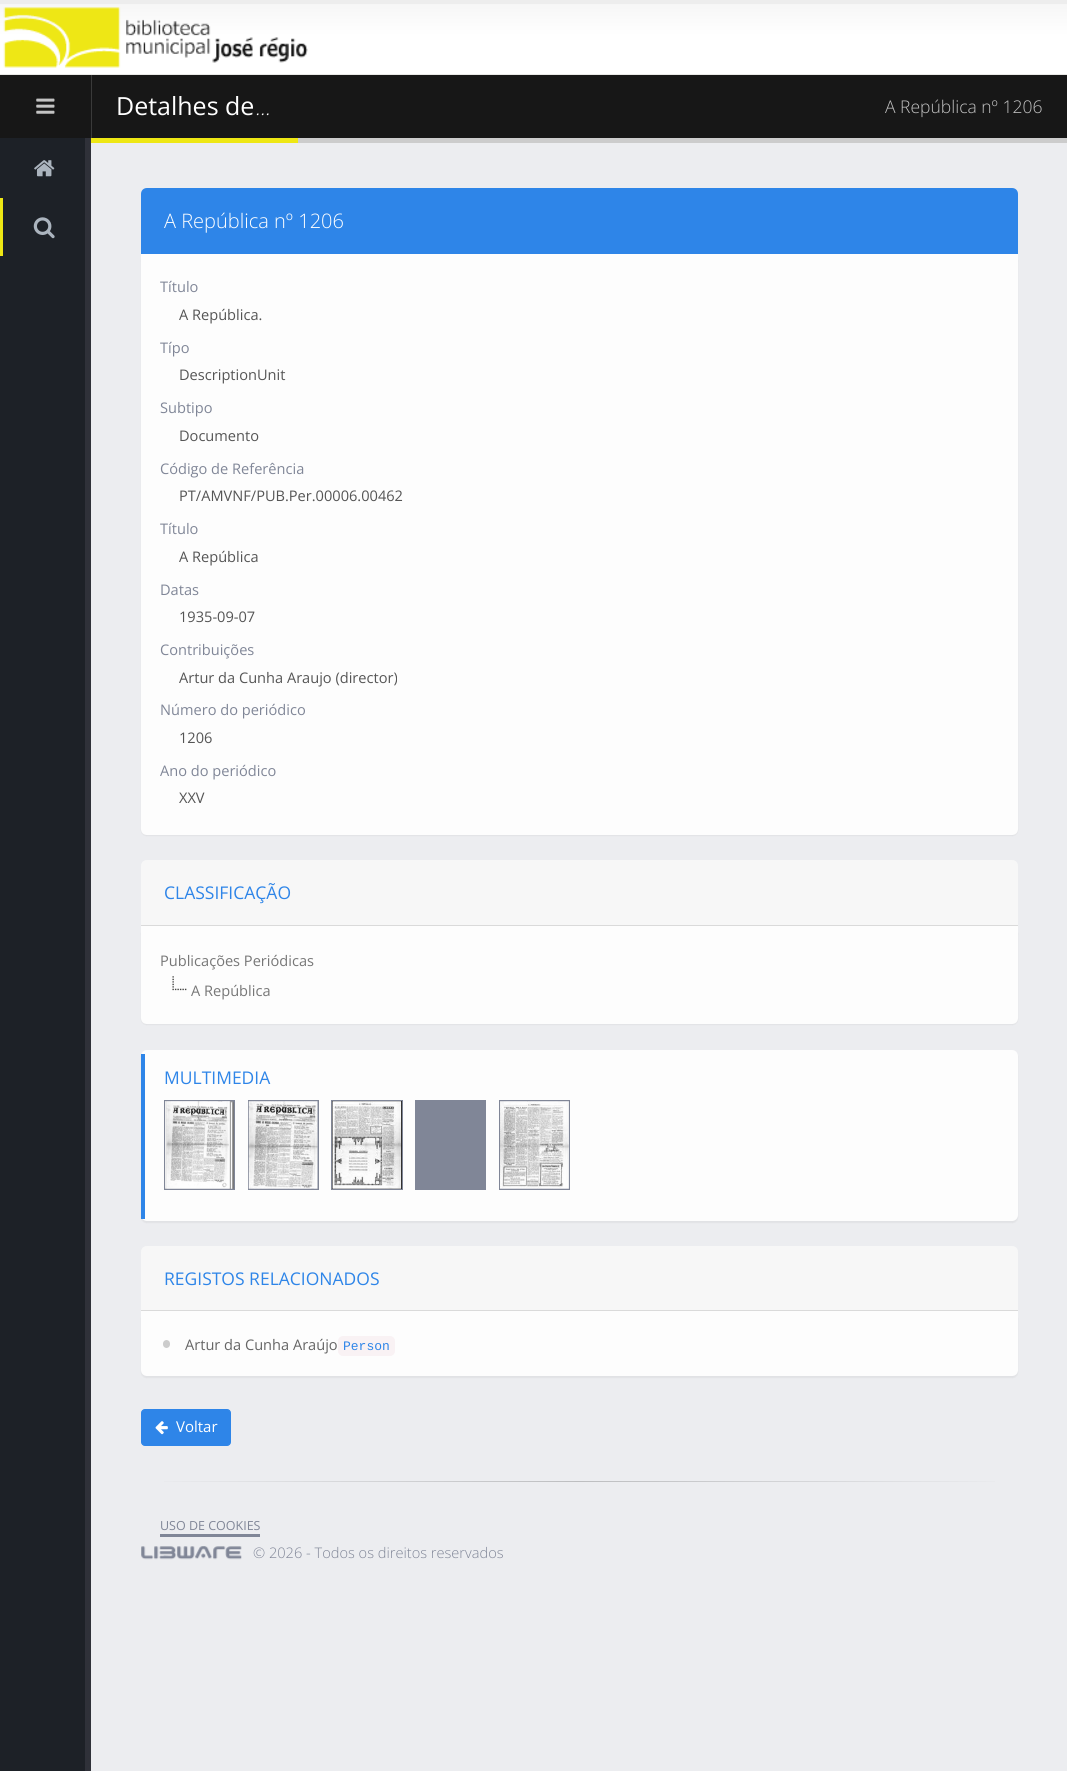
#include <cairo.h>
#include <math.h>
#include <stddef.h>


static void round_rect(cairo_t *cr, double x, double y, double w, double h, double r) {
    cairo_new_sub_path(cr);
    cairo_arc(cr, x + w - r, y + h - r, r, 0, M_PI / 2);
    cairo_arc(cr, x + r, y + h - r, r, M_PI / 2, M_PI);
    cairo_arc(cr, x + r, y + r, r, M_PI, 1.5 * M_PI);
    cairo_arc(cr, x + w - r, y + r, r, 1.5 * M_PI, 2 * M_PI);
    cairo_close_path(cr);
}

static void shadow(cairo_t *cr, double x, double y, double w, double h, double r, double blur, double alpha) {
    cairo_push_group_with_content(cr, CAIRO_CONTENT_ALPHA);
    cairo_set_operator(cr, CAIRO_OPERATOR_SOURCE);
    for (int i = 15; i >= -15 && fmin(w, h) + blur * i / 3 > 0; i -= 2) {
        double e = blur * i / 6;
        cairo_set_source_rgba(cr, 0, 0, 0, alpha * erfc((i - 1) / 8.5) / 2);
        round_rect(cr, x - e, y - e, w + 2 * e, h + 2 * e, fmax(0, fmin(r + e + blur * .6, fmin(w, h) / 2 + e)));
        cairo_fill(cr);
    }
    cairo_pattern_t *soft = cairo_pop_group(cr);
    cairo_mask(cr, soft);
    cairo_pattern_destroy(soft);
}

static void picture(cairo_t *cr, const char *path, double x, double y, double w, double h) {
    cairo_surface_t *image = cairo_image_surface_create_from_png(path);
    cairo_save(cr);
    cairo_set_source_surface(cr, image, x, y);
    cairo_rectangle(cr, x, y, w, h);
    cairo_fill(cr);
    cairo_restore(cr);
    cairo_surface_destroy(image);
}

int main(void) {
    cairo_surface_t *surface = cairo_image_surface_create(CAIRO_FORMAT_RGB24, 1067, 1771);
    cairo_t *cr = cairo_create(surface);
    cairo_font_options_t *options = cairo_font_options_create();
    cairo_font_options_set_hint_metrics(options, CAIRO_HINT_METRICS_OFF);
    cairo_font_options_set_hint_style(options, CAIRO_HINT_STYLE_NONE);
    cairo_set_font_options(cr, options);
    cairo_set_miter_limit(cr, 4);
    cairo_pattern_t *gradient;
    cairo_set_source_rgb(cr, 0.925, 0.929, 0.941);
    cairo_paint(cr);
    gradient = cairo_pattern_create_linear(534, 3.7, 534, 74);
    cairo_pattern_add_color_stop_rgba(gradient, 0, 0.965, 0.965, 0.965, 1);
    cairo_pattern_add_color_stop_rgba(gradient, 0.45, 1, 1, 1, 1);
    cairo_set_source(cr, gradient);
    cairo_pattern_destroy(gradient);
    cairo_rectangle(cr, 0, 4, 1067, 70);
    cairo_fill(cr);
    cairo_set_source_rgb(cr, 0.929, 0.929, 0.929);
    cairo_rectangle(cr, 0, 0, 1067, 4);
    cairo_fill(cr);
    cairo_set_source_rgb(cr, 0.914, 0.914, 0.902);
    cairo_rectangle(cr, 0, 74, 1067, 1);
    cairo_fill(cr);
    picture(cr, "img1.png", 3, 7, 305, 61);
    cairo_set_source_rgb(cr, 0.09, 0.09, 0.09);
    cairo_rectangle(cr, 0, 75, 91, 63);
    cairo_fill(cr);
    picture(cr, "img2.png", 36, 98, 19, 16);
    cairo_set_source_rgb(cr, 0.114, 0.129, 0.153);
    cairo_rectangle(cr, 0, 138, 85, 1633);
    cairo_fill(cr);
    cairo_set_source_rgb(cr, 0.184, 0.192, 0.224);
    cairo_rectangle(cr, 85, 138, 6, 1633);
    cairo_fill(cr);
    picture(cr, "img3.png", 34, 160, 21, 17);
    cairo_set_source_rgb(cr, 0.933, 0.906, 0.082);
    cairo_rectangle(cr, 0, 198, 3, 58);
    cairo_fill(cr);
    picture(cr, "img4.png", 33, 217, 22, 22);
    cairo_set_source_rgb(cr, 0.8, 0.8, 0.8);
    cairo_new_path(cr);
    cairo_move_to(cr, 91, 78);
    cairo_line_to(cr, 91, 143);
    cairo_line_to(cr, 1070, 143);
    cairo_line_to(cr, 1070, 78);
    cairo_line_to(cr, 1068, 78);
    cairo_line_to(cr, 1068, 138);
    cairo_line_to(cr, 91, 138);
    cairo_close_path(cr);
    cairo_fill(cr);
    cairo_set_source_rgb(cr, 0.09, 0.09, 0.09);
    cairo_rectangle(cr, 92, 75, 975, 63);
    cairo_fill(cr);
    cairo_set_source_rgb(cr, 0.227, 0.227, 0.227);
    cairo_rectangle(cr, 91, 75, 1, 63);
    cairo_fill(cr);
    cairo_set_source_rgb(cr, 0.933, 0.906, 0.082);
    cairo_rectangle(cr, 91, 138, 207, 5);
    cairo_fill(cr);
    cairo_select_font_face(cr, "Open Sans", CAIRO_FONT_SLANT_NORMAL, CAIRO_FONT_WEIGHT_NORMAL);
    cairo_set_font_size(cr, 25);
    cairo_set_source_rgb(cr, 1, 1, 1);
    cairo_move_to(cr, 116, 115);
    cairo_show_text(cr, "Detalhes de");
    cairo_select_font_face(cr, "Open Sans Light", CAIRO_FONT_SLANT_ITALIC, CAIRO_FONT_WEIGHT_NORMAL);
    cairo_set_font_size(cr, 21);
    cairo_move_to(cr, 255, 115);
    cairo_show_text(cr, "...");
    cairo_select_font_face(cr, "Open Sans Light", CAIRO_FONT_SLANT_NORMAL, CAIRO_FONT_WEIGHT_NORMAL);
    cairo_set_font_size(cr, 17.5);
    cairo_set_source_rgb(cr, 0.765, 0.765, 0.765);
    cairo_move_to(cr, 885, 113);
    cairo_show_text(cr, "A República nº 1206");
    cairo_set_source_rgb(cr, 0, 0, 0);
    shadow(cr, 141, 255, 877, 581, 6, 0.5, 0.05);
    cairo_set_source_rgb(cr, 0.18, 0.522, 0.91);
    cairo_new_path(cr);
    cairo_move_to(cr, 147, 188);
    cairo_line_to(cr, 1012, 188);
    cairo_curve_to(cr, 1015.5, 188, 1018, 190.5, 1018, 194);
    cairo_line_to(cr, 1018, 254);
    cairo_line_to(cr, 141, 254);
    cairo_line_to(cr, 141, 194);
    cairo_curve_to(cr, 141, 190.5, 143.5, 188, 147, 188);
    cairo_close_path(cr);
    cairo_fill(cr);
    cairo_set_font_size(cr, 20);
    cairo_set_source_rgb(cr, 1, 1, 1);
    cairo_move_to(cr, 164, 228);
    cairo_show_text(cr, "A República nº 1206");
    cairo_set_source_rgb(cr, 0.992, 0.992, 0.992);
    cairo_new_path(cr);
    cairo_move_to(cr, 141, 254);
    cairo_line_to(cr, 1018, 254);
    cairo_line_to(cr, 1018, 829);
    cairo_curve_to(cr, 1018, 832.5, 1015.5, 835, 1012, 835);
    cairo_line_to(cr, 147, 835);
    cairo_curve_to(cr, 143.5, 835, 141, 832.5, 141, 829);
    cairo_close_path(cr);
    cairo_fill(cr);
    cairo_select_font_face(cr, "Open Sans", CAIRO_FONT_SLANT_NORMAL, CAIRO_FONT_WEIGHT_NORMAL);
    cairo_set_font_size(cr, 14.6);
    cairo_set_source_rgb(cr, 0.502, 0.525, 0.592);
    cairo_move_to(cr, 160, 292);
    cairo_show_text(cr, "Título");
    cairo_set_source_rgb(cr, 0.333, 0.333, 0.333);
    cairo_move_to(cr, 179, 320);
    cairo_show_text(cr, "A República.");
    cairo_set_source_rgb(cr, 0.502, 0.525, 0.592);
    cairo_move_to(cr, 160, 353);
    cairo_show_text(cr, "Típo");
    cairo_set_source_rgb(cr, 0.333, 0.333, 0.333);
    cairo_move_to(cr, 179, 380);
    cairo_show_text(cr, "DescriptionUnit");
    cairo_set_source_rgb(cr, 0.502, 0.525, 0.592);
    cairo_move_to(cr, 160, 413);
    cairo_show_text(cr, "Subtipo");
    cairo_set_source_rgb(cr, 0.333, 0.333, 0.333);
    cairo_move_to(cr, 179, 441);
    cairo_show_text(cr, "Documento");
    cairo_set_source_rgb(cr, 0.502, 0.525, 0.592);
    cairo_move_to(cr, 160, 474);
    cairo_show_text(cr, "Código de Referência");
    cairo_set_source_rgb(cr, 0.333, 0.333, 0.333);
    cairo_move_to(cr, 179, 501);
    cairo_show_text(cr, "PT/AMVNF/PUB.Per.00006.00462");
    cairo_set_source_rgb(cr, 0.502, 0.525, 0.592);
    cairo_move_to(cr, 160, 534);
    cairo_show_text(cr, "Título");
    cairo_set_source_rgb(cr, 0.333, 0.333, 0.333);
    cairo_move_to(cr, 179, 562);
    cairo_show_text(cr, "A República");
    cairo_set_source_rgb(cr, 0.502, 0.525, 0.592);
    cairo_move_to(cr, 160, 595);
    cairo_show_text(cr, "Datas");
    cairo_set_source_rgb(cr, 0.333, 0.333, 0.333);
    cairo_move_to(cr, 179, 622);
    cairo_show_text(cr, "1935-09-07");
    cairo_set_source_rgb(cr, 0.502, 0.525, 0.592);
    cairo_move_to(cr, 160, 655);
    cairo_show_text(cr, "Contribuições");
    cairo_set_source_rgb(cr, 0.333, 0.333, 0.333);
    cairo_move_to(cr, 179, 683);
    cairo_show_text(cr, "Artur da Cunha Araujo (director)");
    cairo_set_source_rgb(cr, 0.502, 0.525, 0.592);
    cairo_move_to(cr, 160, 715);
    cairo_show_text(cr, "Número do periódico");
    cairo_set_source_rgb(cr, 0.333, 0.333, 0.333);
    cairo_move_to(cr, 179, 743);
    cairo_show_text(cr, "1206");
    cairo_set_source_rgb(cr, 0.502, 0.525, 0.592);
    cairo_move_to(cr, 160, 776);
    cairo_show_text(cr, "Ano do periódico");
    cairo_set_source_rgb(cr, 0.333, 0.333, 0.333);
    cairo_move_to(cr, 179, 803);
    cairo_show_text(cr, "XXV");
    cairo_set_source_rgb(cr, 0, 0, 0);
    shadow(cr, 141, 928, 877, 97, 6, 0.5, 0.05);
    cairo_set_source_rgb(cr, 0.965, 0.965, 0.965);
    cairo_new_path(cr);
    cairo_move_to(cr, 147, 860);
    cairo_line_to(cr, 1012, 860);
    cairo_curve_to(cr, 1015.5, 860, 1018, 862.5, 1018, 866);
    cairo_line_to(cr, 1018, 926);
    cairo_line_to(cr, 141, 926);
    cairo_line_to(cr, 141, 866);
    cairo_curve_to(cr, 141, 862.5, 143.5, 860, 147, 860);
    cairo_close_path(cr);
    cairo_fill(cr);
    cairo_set_source_rgb(cr, 0.855, 0.855, 0.855);
    cairo_rectangle(cr, 141, 925, 877, 1);
    cairo_fill(cr);
    cairo_set_font_size(cr, 17.5);
    cairo_set_source_rgb(cr, 0.18, 0.522, 0.91);
    cairo_move_to(cr, 164, 899);
    cairo_show_text(cr, "CLASSIFICAÇÃO");
    cairo_set_source_rgb(cr, 0.992, 0.992, 0.992);
    cairo_new_path(cr);
    cairo_move_to(cr, 141, 926);
    cairo_line_to(cr, 1018, 926);
    cairo_line_to(cr, 1018, 1018);
    cairo_curve_to(cr, 1018, 1021.5, 1015.5, 1024, 1012, 1024);
    cairo_line_to(cr, 147, 1024);
    cairo_curve_to(cr, 143.5, 1024, 141, 1021.5, 141, 1018);
    cairo_close_path(cr);
    cairo_fill(cr);
    cairo_set_font_size(cr, 14.6);
    cairo_set_source_rgb(cr, 0.467, 0.467, 0.467);
    cairo_move_to(cr, 160, 966);
    cairo_show_text(cr, "Publicações Periódicas");
    picture(cr, "img5.png", 172, 976, 15, 15);
    cairo_move_to(cr, 191, 996);
    cairo_show_text(cr, "A República");
    cairo_set_source_rgb(cr, 0, 0, 0);
    shadow(cr, 141, 1051, 877, 172, 6, 0.5, 0.05);
    cairo_set_source_rgb(cr, 0.992, 0.992, 0.992);
    round_rect(cr, 141, 1050, 877, 171, 6);
    cairo_fill(cr);
    cairo_set_source_rgb(cr, 0.18, 0.522, 0.91);
    cairo_rectangle(cr, 141, 1054, 4, 165);
    cairo_fill(cr);
    cairo_set_font_size(cr, 17.5);
    cairo_move_to(cr, 164, 1084);
    cairo_show_text(cr, "MULTIMEDIA");
    cairo_rectangle(cr, 164.5, 1100.5, 70, 89);
    cairo_set_source_rgb(cr, 0.502, 0.525, 0.592);
    cairo_set_line_width(cr, 1);
    cairo_stroke(cr);
    cairo_rectangle(cr, 165, 1101, 69, 88);
    cairo_fill(cr);
    picture(cr, "img6.png", 165, 1101, 69, 88);
    cairo_rectangle(cr, 248.5, 1100.5, 70, 89);
    cairo_stroke(cr);
    cairo_rectangle(cr, 249, 1101, 69, 88);
    cairo_fill(cr);
    picture(cr, "img7.png", 248, 1101, 70, 88);
    cairo_set_source_rgb(cr, 0.09, 0.09, 0.09);
    cairo_rectangle(cr, 331.5, 1100.5, 71, 89);
    cairo_fill_preserve(cr);
    cairo_set_source_rgb(cr, 0.502, 0.525, 0.592);
    cairo_stroke(cr);
    picture(cr, "img8.png", 332, 1101, 70, 88);
    cairo_rectangle(cr, 415.5, 1100.5, 70, 89);
    cairo_stroke(cr);
    cairo_rectangle(cr, 416, 1101, 69, 88);
    cairo_fill(cr);
    cairo_rectangle(cr, 499.5, 1100.5, 70, 89);
    cairo_stroke(cr);
    cairo_rectangle(cr, 500, 1101, 69, 88);
    cairo_fill(cr);
    picture(cr, "img9.png", 500, 1101, 69, 88);
    cairo_set_source_rgb(cr, 0, 0, 0);
    shadow(cr, 141, 1313, 877, 65, 6, 0.5, 0.05);
    cairo_set_source_rgb(cr, 0.965, 0.965, 0.965);
    cairo_new_path(cr);
    cairo_move_to(cr, 147, 1246);
    cairo_line_to(cr, 1012, 1246);
    cairo_curve_to(cr, 1015.5, 1246, 1018, 1248.5, 1018, 1252);
    cairo_line_to(cr, 1018, 1311);
    cairo_line_to(cr, 141, 1311);
    cairo_line_to(cr, 141, 1252);
    cairo_curve_to(cr, 141, 1248.5, 143.5, 1246, 147, 1246);
    cairo_close_path(cr);
    cairo_fill(cr);
    cairo_set_source_rgb(cr, 0.855, 0.855, 0.855);
    cairo_rectangle(cr, 141, 1310, 877, 1);
    cairo_fill(cr);
    cairo_set_source_rgb(cr, 0.18, 0.522, 0.91);
    cairo_move_to(cr, 164, 1285);
    cairo_show_text(cr, "REGISTOS RELACIONADOS");
    cairo_set_source_rgb(cr, 0.992, 0.992, 0.992);
    cairo_new_path(cr);
    cairo_move_to(cr, 141, 1311);
    cairo_line_to(cr, 1018, 1311);
    cairo_line_to(cr, 1018, 1370);
    cairo_curve_to(cr, 1018, 1373.5, 1015.5, 1376, 1012, 1376);
    cairo_line_to(cr, 147, 1376);
    cairo_curve_to(cr, 143.5, 1376, 141, 1373.5, 141, 1370);
    cairo_close_path(cr);
    cairo_fill(cr);
    cairo_set_source_rgb(cr, 0.8, 0.8, 0.8);
    round_rect(cr, 163, 1340, 7, 8, 3.5);
    cairo_fill(cr);
    cairo_set_font_size(cr, 14.6);
    cairo_set_source_rgb(cr, 0.396, 0.396, 0.396);
    cairo_move_to(cr, 185, 1350);
    cairo_show_text(cr, "Artur da Cunha Araújo");
    cairo_set_source_rgb(cr, 0.976, 0.949, 0.957);
    round_rect(cr, 338, 1336, 57, 20, 5);
    cairo_fill(cr);
    cairo_select_font_face(cr, "Liberation Mono", CAIRO_FONT_SLANT_NORMAL, CAIRO_FONT_WEIGHT_NORMAL);
    cairo_set_font_size(cr, 13);
    cairo_set_source_rgb(cr, 0.18, 0.522, 0.91);
    cairo_move_to(cr, 343, 1350);
    cairo_show_text(cr, "Person");
    round_rect(cr, 141.5, 1409.5, 89, 36, 3.5);
    cairo_fill_preserve(cr);
    cairo_stroke(cr);
    picture(cr, "img10.png", 155, 1421, 13, 14);
    cairo_select_font_face(cr, "Open Sans", CAIRO_FONT_SLANT_NORMAL, CAIRO_FONT_WEIGHT_NORMAL);
    cairo_set_font_size(cr, 15);
    cairo_set_source_rgb(cr, 1, 1, 1);
    cairo_move_to(cr, 176, 1432);
    cairo_show_text(cr, "Voltar");
    gradient = cairo_pattern_create_linear(141, 1482, 1018, 1482);
    cairo_pattern_add_color_stop_rgba(gradient, 0, 0.925, 0.929, 0.941, 1);
    cairo_pattern_add_color_stop_rgba(gradient, 0.5, 0.741, 0.745, 0.753, 1);
    cairo_pattern_add_color_stop_rgba(gradient, 1, 0.925, 0.929, 0.941, 1);
    cairo_set_source(cr, gradient);
    cairo_pattern_destroy(gradient);
    cairo_rectangle(cr, 164, 1481, 831, 1);
    cairo_fill(cr);
    cairo_set_font_size(cr, 12.5);
    cairo_set_source_rgb(cr, 0.502, 0.525, 0.592);
    cairo_move_to(cr, 160, 1530);
    cairo_show_text(cr, "USO DE COOKIES");
    cairo_rectangle(cr, 160, 1534, 100, 3);
    cairo_fill(cr);
    picture(cr, "img11.png", 141, 1546, 101, 14);
    cairo_select_font_face(cr, "Open Sans Light", CAIRO_FONT_SLANT_NORMAL, CAIRO_FONT_WEIGHT_NORMAL);
    cairo_set_font_size(cr, 14.6);
    cairo_move_to(cr, 253, 1558);
    cairo_show_text(cr, "© 2026 - Todos os direitos reservados");
    cairo_surface_write_to_png(surface, "page.png");
    cairo_font_options_destroy(options);
    cairo_destroy(cr);
    cairo_surface_destroy(surface);
    return 0;
}
